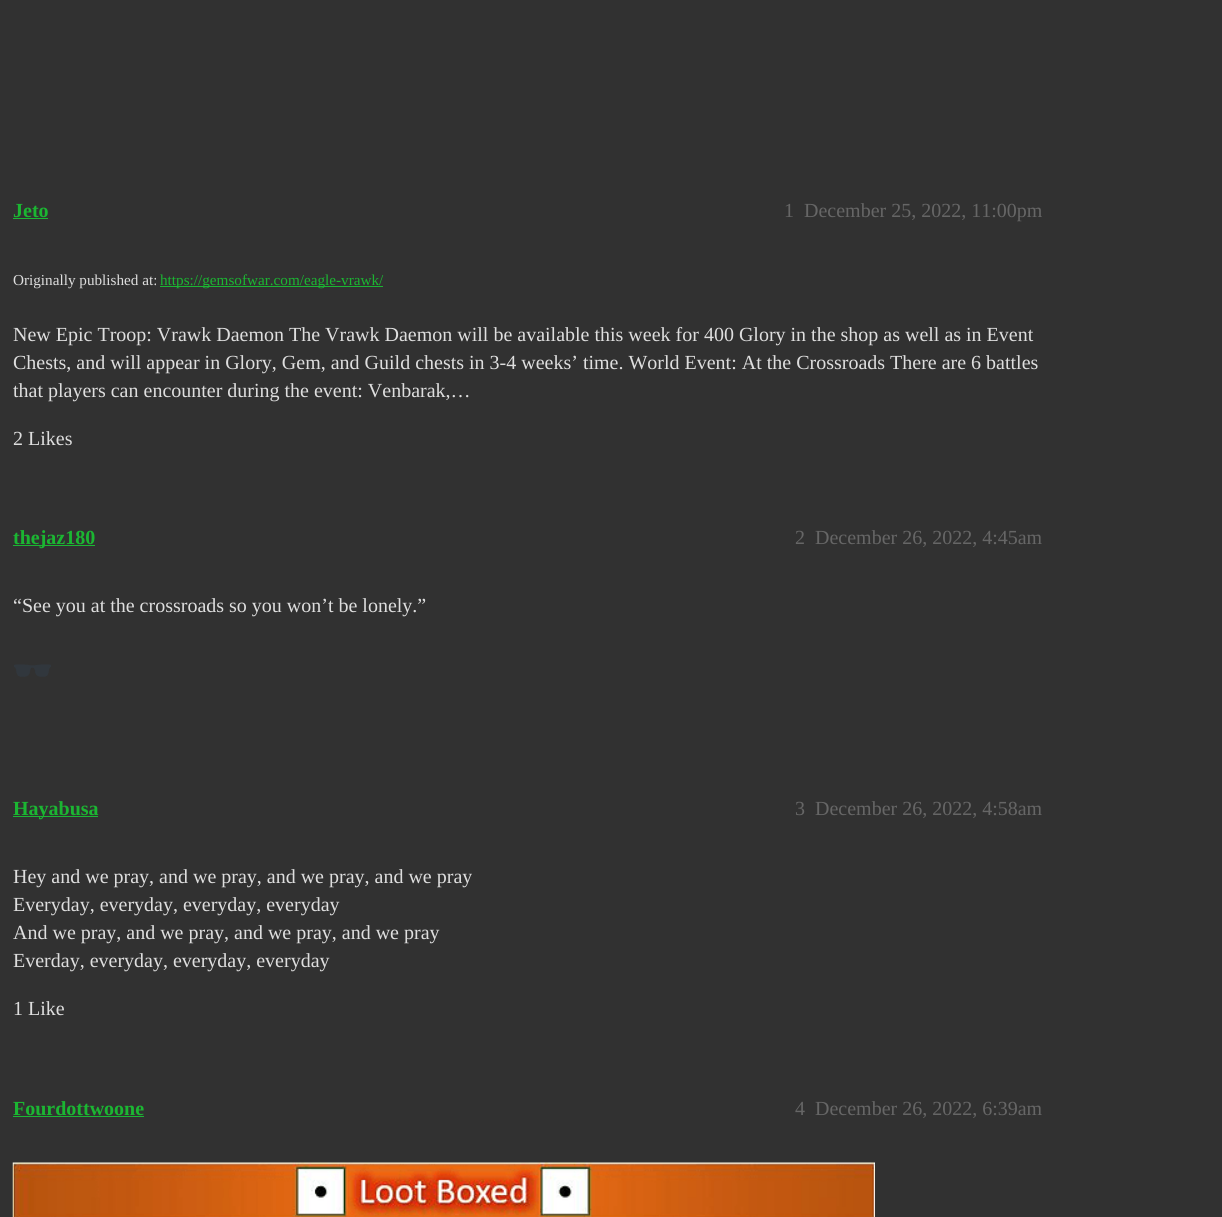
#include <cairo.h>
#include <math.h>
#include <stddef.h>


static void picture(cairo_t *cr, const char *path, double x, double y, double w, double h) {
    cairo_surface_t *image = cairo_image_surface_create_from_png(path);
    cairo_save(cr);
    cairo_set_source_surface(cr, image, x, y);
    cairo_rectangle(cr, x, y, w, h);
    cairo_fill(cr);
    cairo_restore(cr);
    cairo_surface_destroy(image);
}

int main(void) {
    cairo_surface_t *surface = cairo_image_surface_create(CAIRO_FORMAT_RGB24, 1222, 1217);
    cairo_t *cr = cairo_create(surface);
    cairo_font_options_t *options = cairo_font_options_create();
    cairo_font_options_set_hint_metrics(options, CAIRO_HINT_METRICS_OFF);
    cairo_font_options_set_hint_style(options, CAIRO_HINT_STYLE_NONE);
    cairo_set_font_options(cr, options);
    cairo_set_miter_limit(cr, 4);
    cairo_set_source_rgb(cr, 0.192, 0.192, 0.192);
    cairo_paint(cr);
    cairo_select_font_face(cr, "Liberation Serif", CAIRO_FONT_SLANT_NORMAL, CAIRO_FONT_WEIGHT_BOLD);
    cairo_set_font_size(cr, 20);
    cairo_set_source_rgb(cr, 0.106, 0.714, 0.196);
    cairo_move_to(cr, 13, 217);
    cairo_show_text(cr, "Jeto");
    cairo_rectangle(cr, 13, 218, 35, 1);
    cairo_fill(cr);
    cairo_select_font_face(cr, "Liberation Serif", CAIRO_FONT_SLANT_NORMAL, CAIRO_FONT_WEIGHT_NORMAL);
    cairo_set_source_rgb(cr, 0.4, 0.4, 0.4);
    cairo_move_to(cr, 784, 217);
    cairo_show_text(cr, "1");
    cairo_move_to(cr, 804, 217);
    cairo_show_text(cr, "December 25, 2022, 11:00pm");
    cairo_set_font_size(cr, 15.2);
    cairo_set_source_rgb(cr, 0.871, 0.871, 0.871);
    cairo_move_to(cr, 13, 285);
    cairo_show_text(cr, "Originally published at:");
    cairo_set_source_rgb(cr, 0.106, 0.714, 0.196);
    cairo_rectangle(cr, 160, 286, 223, 1);
    cairo_fill(cr);
    cairo_move_to(cr, 160, 285);
    cairo_show_text(cr, "https://gemsofwar.com/eagle-vrawk/");
    cairo_set_font_size(cr, 20);
    cairo_set_source_rgb(cr, 0.871, 0.871, 0.871);
    cairo_move_to(cr, 13, 341);
    cairo_show_text(cr, "New Epic Troop: Vrawk Daemon The Vrawk Daemon will be available this week for 400 Glory in the shop as well as in Event");
    cairo_move_to(cr, 13, 369);
    cairo_show_text(cr, "Chests, and will appear in Glory, Gem, and Guild chests in 3-4 weeks’ time. World Event: At the Crossroads There are 6 battles");
    cairo_move_to(cr, 13, 397);
    cairo_show_text(cr, "that players can encounter during the event: Venbarak,…");
    cairo_move_to(cr, 13, 445);
    cairo_show_text(cr, "2 Likes");
    cairo_set_source_rgb(cr, 0.106, 0.714, 0.196);
    cairo_rectangle(cr, 13, 545, 82, 1);
    cairo_fill(cr);
    cairo_select_font_face(cr, "Liberation Serif", CAIRO_FONT_SLANT_NORMAL, CAIRO_FONT_WEIGHT_BOLD);
    cairo_move_to(cr, 13, 544);
    cairo_show_text(cr, "thejaz180");
    cairo_select_font_face(cr, "Liberation Serif", CAIRO_FONT_SLANT_NORMAL, CAIRO_FONT_WEIGHT_NORMAL);
    cairo_set_source_rgb(cr, 0.4, 0.4, 0.4);
    cairo_move_to(cr, 795, 544);
    cairo_show_text(cr, "2");
    cairo_move_to(cr, 815, 544);
    cairo_show_text(cr, "December 26, 2022, 4:45am");
    cairo_set_source_rgb(cr, 0.871, 0.871, 0.871);
    cairo_move_to(cr, 13, 612);
    cairo_show_text(cr, "“See you at the crossroads so you won’t be lonely.”");
    picture(cr, "img1.png", 14, 664, 37, 13);
    cairo_set_source_rgb(cr, 0.106, 0.714, 0.196);
    cairo_rectangle(cr, 13, 816, 85, 1);
    cairo_fill(cr);
    cairo_select_font_face(cr, "Liberation Serif", CAIRO_FONT_SLANT_NORMAL, CAIRO_FONT_WEIGHT_BOLD);
    cairo_move_to(cr, 13, 815);
    cairo_show_text(cr, "Hayabusa");
    cairo_select_font_face(cr, "Liberation Serif", CAIRO_FONT_SLANT_NORMAL, CAIRO_FONT_WEIGHT_NORMAL);
    cairo_set_source_rgb(cr, 0.4, 0.4, 0.4);
    cairo_move_to(cr, 795, 815);
    cairo_show_text(cr, "3");
    cairo_move_to(cr, 815, 815);
    cairo_show_text(cr, "December 26, 2022, 4:58am");
    cairo_set_source_rgb(cr, 0.871, 0.871, 0.871);
    cairo_move_to(cr, 13, 883);
    cairo_show_text(cr, "Hey and we pray, and we pray, and we pray, and we pray");
    cairo_move_to(cr, 13, 911);
    cairo_show_text(cr, "Everyday, everyday, everyday, everyday");
    cairo_move_to(cr, 13, 939);
    cairo_show_text(cr, "And we pray, and we pray, and we pray, and we pray");
    cairo_move_to(cr, 13, 967);
    cairo_show_text(cr, "Everday, everyday, everyday, everyday");
    cairo_move_to(cr, 13, 1015);
    cairo_show_text(cr, "1 Like");
    cairo_select_font_face(cr, "Liberation Serif", CAIRO_FONT_SLANT_NORMAL, CAIRO_FONT_WEIGHT_BOLD);
    cairo_set_source_rgb(cr, 0.106, 0.714, 0.196);
    cairo_move_to(cr, 13, 1115);
    cairo_show_text(cr, "Fourdottwoone");
    cairo_rectangle(cr, 13, 1116, 131, 1);
    cairo_fill(cr);
    cairo_select_font_face(cr, "Liberation Serif", CAIRO_FONT_SLANT_NORMAL, CAIRO_FONT_WEIGHT_NORMAL);
    cairo_set_source_rgb(cr, 0.4, 0.4, 0.4);
    cairo_move_to(cr, 795, 1115);
    cairo_show_text(cr, "4");
    cairo_move_to(cr, 815, 1115);
    cairo_show_text(cr, "December 26, 2022, 6:39am");
    picture(cr, "img2.png", 12, 1162, 863, 55);
    cairo_surface_write_to_png(surface, "page.png");
    cairo_font_options_destroy(options);
    cairo_destroy(cr);
    cairo_surface_destroy(surface);
    return 0;
}
